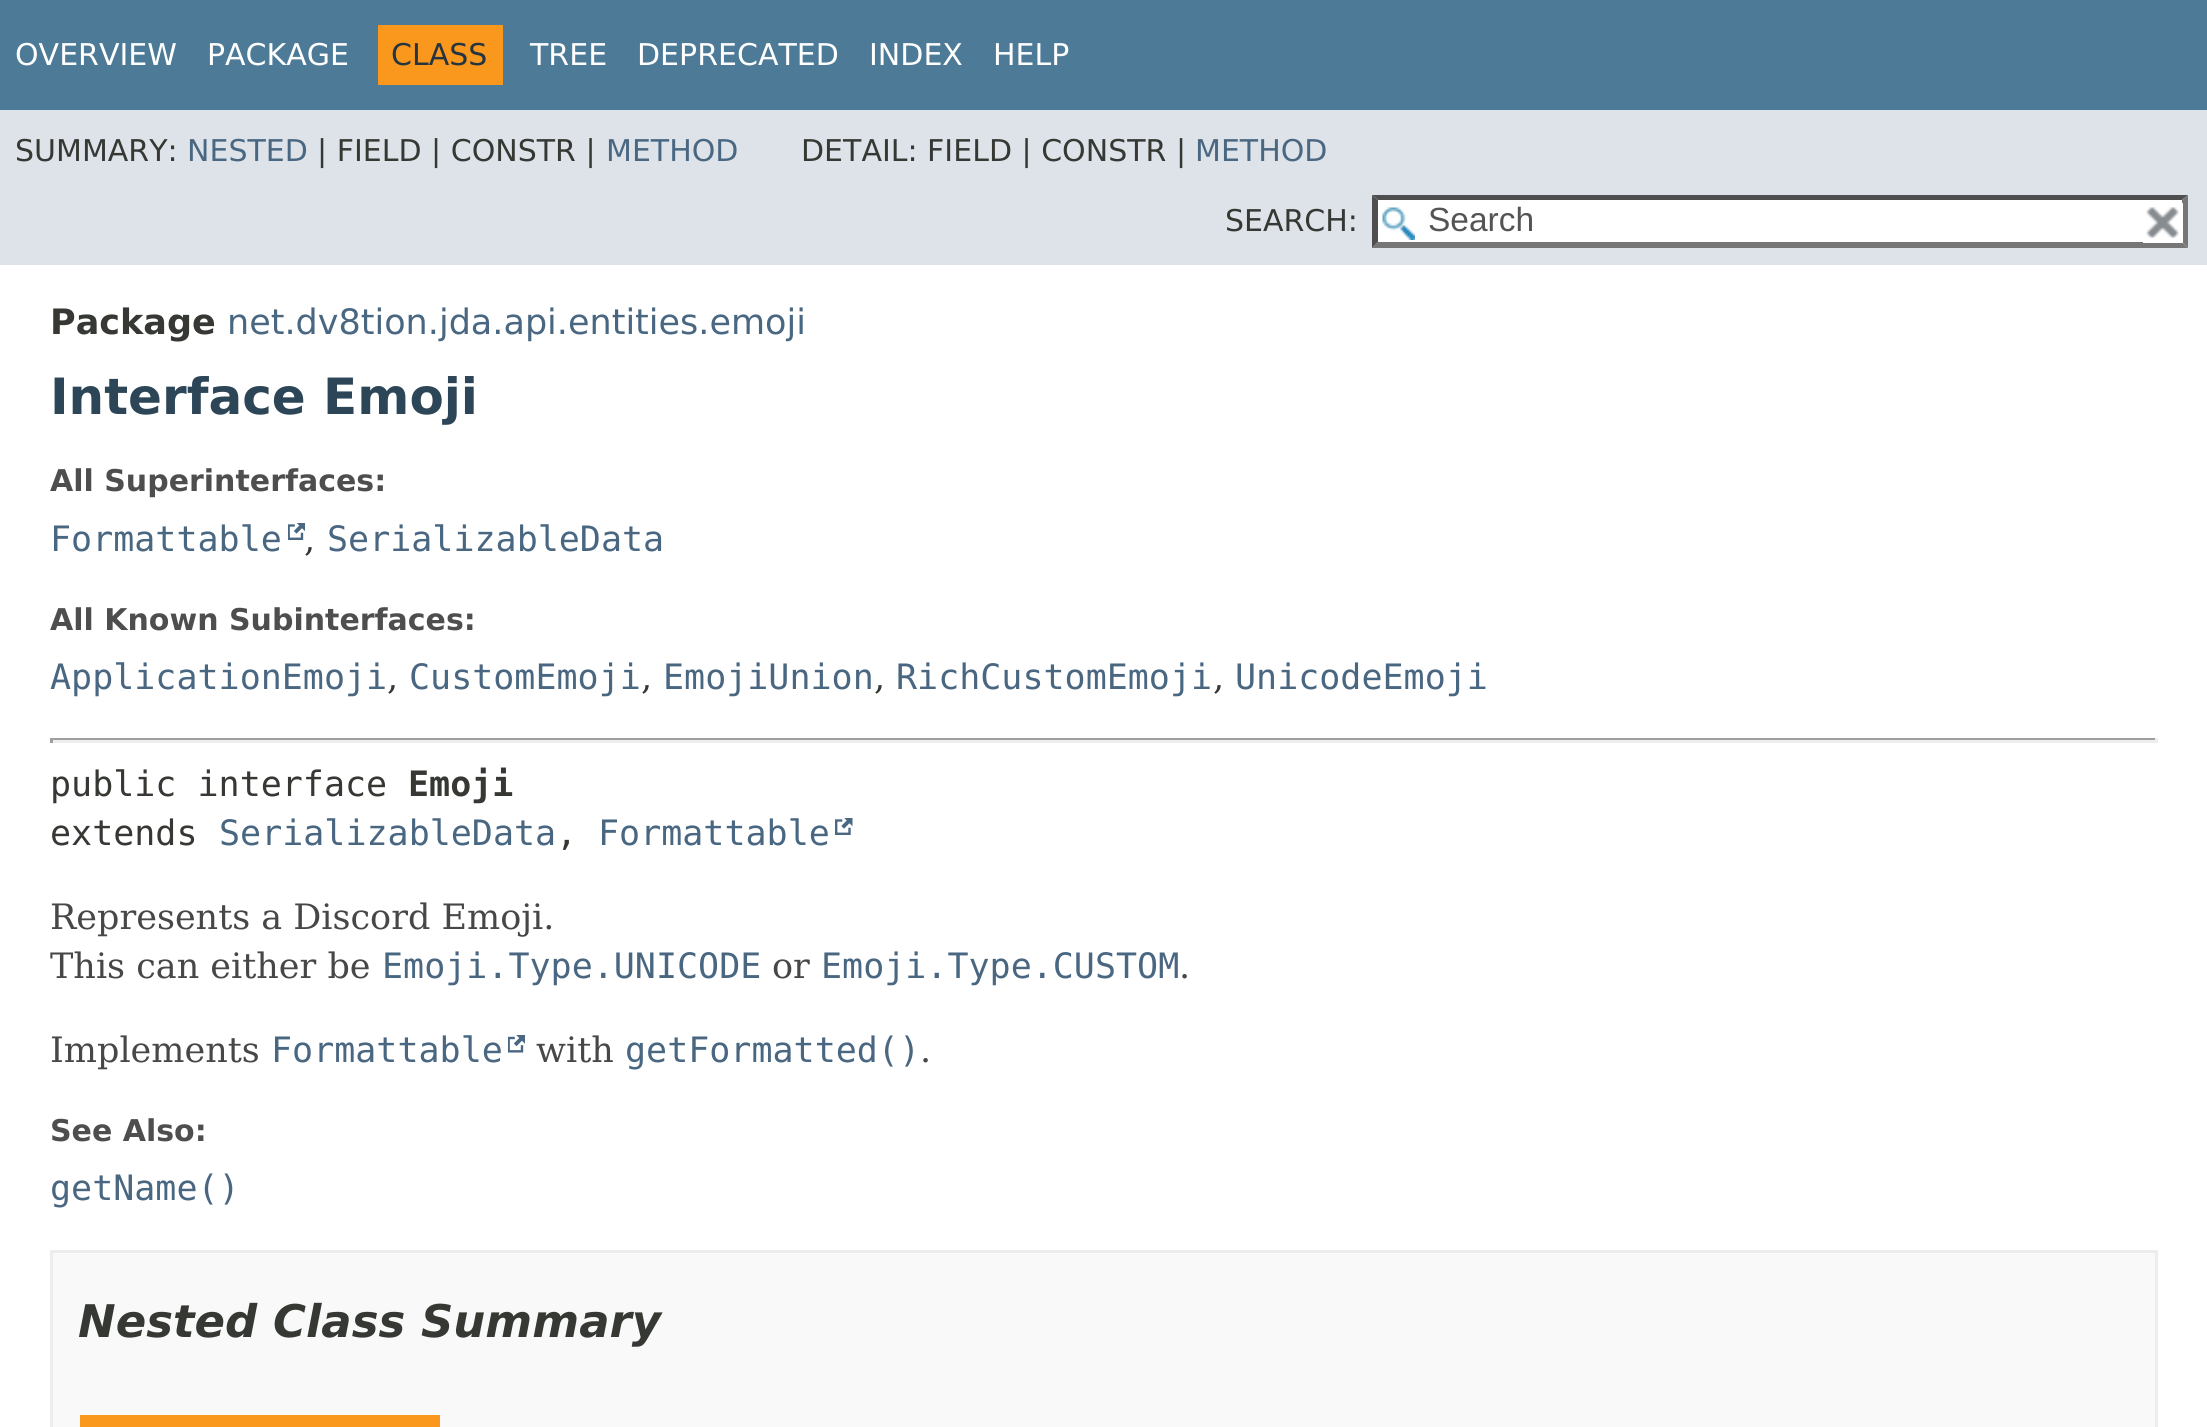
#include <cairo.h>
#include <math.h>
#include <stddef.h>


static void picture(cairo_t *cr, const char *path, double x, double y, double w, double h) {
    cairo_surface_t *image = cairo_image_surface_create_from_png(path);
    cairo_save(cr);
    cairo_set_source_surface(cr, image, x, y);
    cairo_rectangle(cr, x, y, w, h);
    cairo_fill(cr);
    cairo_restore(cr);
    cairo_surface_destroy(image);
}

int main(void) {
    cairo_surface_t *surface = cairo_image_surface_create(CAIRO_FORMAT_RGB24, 2207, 1427);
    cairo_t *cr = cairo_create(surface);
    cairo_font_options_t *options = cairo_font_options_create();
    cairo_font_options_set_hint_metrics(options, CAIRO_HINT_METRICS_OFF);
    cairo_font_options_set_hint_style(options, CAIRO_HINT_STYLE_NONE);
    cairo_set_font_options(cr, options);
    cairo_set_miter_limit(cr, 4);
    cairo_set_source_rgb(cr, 1, 1, 1);
    cairo_paint(cr);
    cairo_set_source_rgb(cr, 0.302, 0.478, 0.592);
    cairo_rectangle(cr, 0, 0, 2207, 110);
    cairo_fill(cr);
    cairo_select_font_face(cr, "DejaVu Sans", CAIRO_FONT_SLANT_NORMAL, CAIRO_FONT_WEIGHT_NORMAL);
    cairo_set_font_size(cr, 30);
    cairo_set_source_rgb(cr, 1, 1, 1);
    cairo_move_to(cr, 15, 65);
    cairo_show_text(cr, "OVERVIEW");
    cairo_move_to(cr, 207, 65);
    cairo_show_text(cr, "PACKAGE");
    cairo_set_source_rgb(cr, 0.973, 0.596, 0.114);
    cairo_rectangle(cr, 378, 25, 125, 60);
    cairo_fill(cr);
    cairo_set_source_rgb(cr, 0.145, 0.204, 0.255);
    cairo_move_to(cr, 391, 65);
    cairo_show_text(cr, "CLASS");
    cairo_set_source_rgb(cr, 1, 1, 1);
    cairo_move_to(cr, 530, 65);
    cairo_show_text(cr, "TREE");
    cairo_move_to(cr, 637, 65);
    cairo_show_text(cr, "DEPRECATED");
    cairo_move_to(cr, 869, 65);
    cairo_show_text(cr, "INDEX");
    cairo_move_to(cr, 993, 65);
    cairo_show_text(cr, "HELP");
    cairo_set_source_rgb(cr, 0.871, 0.89, 0.914);
    cairo_rectangle(cr, 0, 110, 2207, 155);
    cairo_fill(cr);
    cairo_set_source_rgb(cr, 0.208, 0.22, 0.2);
    cairo_move_to(cr, 15, 161);
    cairo_show_text(cr, "SUMMARY:");
    cairo_set_source_rgb(cr, 0.29, 0.404, 0.51);
    cairo_move_to(cr, 187, 161);
    cairo_show_text(cr, "NESTED");
    cairo_set_source_rgb(cr, 0.208, 0.22, 0.2);
    cairo_move_to(cr, 317, 161);
    cairo_show_text(cr, "| FIELD | CONSTR |");
    cairo_set_source_rgb(cr, 0.29, 0.404, 0.51);
    cairo_move_to(cr, 606, 161);
    cairo_show_text(cr, "METHOD");
    cairo_set_source_rgb(cr, 0.208, 0.22, 0.2);
    cairo_move_to(cr, 801, 161);
    cairo_show_text(cr, "DETAIL: FIELD | CONSTR |");
    cairo_set_source_rgb(cr, 0.29, 0.404, 0.51);
    cairo_move_to(cr, 1195, 161);
    cairo_show_text(cr, "METHOD");
    cairo_set_source_rgb(cr, 0.208, 0.22, 0.2);
    cairo_move_to(cr, 1225, 231);
    cairo_show_text(cr, "SEARCH:");
    cairo_set_source_rgb(cr, 1, 1, 1);
    cairo_rectangle(cr, 1373, 195, 815, 53);
    cairo_fill(cr);
    picture(cr, "img1.png", 1382, 207, 33, 33);
    cairo_set_source_rgb(cr, 0.31, 0.31, 0.31);
    cairo_new_path(cr);
    cairo_move_to(cr, 1372, 195);
    cairo_line_to(cr, 2188, 195);
    cairo_line_to(cr, 2182, 200);
    cairo_line_to(cr, 1378, 200);
    cairo_close_path(cr);
    cairo_fill(cr);
    cairo_set_source_rgb(cr, 0.463, 0.463, 0.463);
    cairo_new_path(cr);
    cairo_move_to(cr, 2188, 195);
    cairo_line_to(cr, 2188, 248);
    cairo_line_to(cr, 2182, 242);
    cairo_line_to(cr, 2182, 200);
    cairo_close_path(cr);
    cairo_fill(cr);
    cairo_new_path(cr);
    cairo_move_to(cr, 2188, 248);
    cairo_line_to(cr, 1372, 248);
    cairo_line_to(cr, 1378, 242);
    cairo_line_to(cr, 2182, 242);
    cairo_close_path(cr);
    cairo_fill(cr);
    cairo_set_source_rgb(cr, 0.31, 0.31, 0.31);
    cairo_new_path(cr);
    cairo_move_to(cr, 1372, 248);
    cairo_line_to(cr, 1372, 195);
    cairo_line_to(cr, 1378, 200);
    cairo_line_to(cr, 1378, 242);
    cairo_close_path(cr);
    cairo_fill(cr);
    cairo_select_font_face(cr, "Liberation Sans", CAIRO_FONT_SLANT_NORMAL, CAIRO_FONT_WEIGHT_NORMAL);
    cairo_set_font_size(cr, 33.5);
    cairo_set_source_rgb(cr, 0.329, 0.329, 0.329);
    cairo_move_to(cr, 1428, 231);
    cairo_show_text(cr, "Search");
    cairo_set_source_rgb(cr, 1, 1, 1);
    cairo_rectangle(cr, 2143, 203, 40, 40);
    cairo_fill(cr);
    picture(cr, "img2.png", 2146, 207, 33, 31);
    cairo_select_font_face(cr, "DejaVu Sans", CAIRO_FONT_SLANT_NORMAL, CAIRO_FONT_WEIGHT_BOLD);
    cairo_set_font_size(cr, 35);
    cairo_set_source_rgb(cr, 0.208, 0.22, 0.2);
    cairo_move_to(cr, 50, 334);
    cairo_show_text(cr, "Package");
    cairo_select_font_face(cr, "DejaVu Sans", CAIRO_FONT_SLANT_NORMAL, CAIRO_FONT_WEIGHT_NORMAL);
    cairo_set_source_rgb(cr, 0.29, 0.404, 0.51);
    cairo_move_to(cr, 227, 334);
    cairo_show_text(cr, "net.dv8tion.jda.api.entities.emoji");
    cairo_select_font_face(cr, "DejaVu Sans", CAIRO_FONT_SLANT_NORMAL, CAIRO_FONT_WEIGHT_BOLD);
    cairo_set_font_size(cr, 50);
    cairo_set_source_rgb(cr, 0.173, 0.271, 0.341);
    cairo_move_to(cr, 50, 414);
    cairo_show_text(cr, "Interface Emoji");
    cairo_set_font_size(cr, 30);
    cairo_set_source_rgb(cr, 0.306, 0.306, 0.306);
    cairo_move_to(cr, 50, 491);
    cairo_show_text(cr, "All Superinterfaces:");
    cairo_select_font_face(cr, "DejaVu Sans Mono", CAIRO_FONT_SLANT_NORMAL, CAIRO_FONT_WEIGHT_NORMAL);
    cairo_set_font_size(cr, 35);
    cairo_set_source_rgb(cr, 0.29, 0.404, 0.51);
    cairo_move_to(cr, 50, 551);
    cairo_show_text(cr, "Formattable");
    picture(cr, "img3.png", 288, 523, 17, 17);
    cairo_select_font_face(cr, "DejaVu Serif", CAIRO_FONT_SLANT_NORMAL, CAIRO_FONT_WEIGHT_NORMAL);
    cairo_set_source_rgb(cr, 0.208, 0.22, 0.2);
    cairo_move_to(cr, 304, 551);
    cairo_show_text(cr, ",");
    cairo_select_font_face(cr, "DejaVu Sans Mono", CAIRO_FONT_SLANT_NORMAL, CAIRO_FONT_WEIGHT_NORMAL);
    cairo_set_source_rgb(cr, 0.29, 0.404, 0.51);
    cairo_move_to(cr, 327, 551);
    cairo_show_text(cr, "SerializableData");
    cairo_select_font_face(cr, "DejaVu Sans", CAIRO_FONT_SLANT_NORMAL, CAIRO_FONT_WEIGHT_BOLD);
    cairo_set_font_size(cr, 30);
    cairo_set_source_rgb(cr, 0.306, 0.306, 0.306);
    cairo_move_to(cr, 50, 630);
    cairo_show_text(cr, "All Known Subinterfaces:");
    cairo_select_font_face(cr, "DejaVu Sans Mono", CAIRO_FONT_SLANT_NORMAL, CAIRO_FONT_WEIGHT_NORMAL);
    cairo_set_font_size(cr, 35);
    cairo_set_source_rgb(cr, 0.29, 0.404, 0.51);
    cairo_move_to(cr, 50, 689);
    cairo_show_text(cr, "ApplicationEmoji");
    cairo_select_font_face(cr, "DejaVu Serif", CAIRO_FONT_SLANT_NORMAL, CAIRO_FONT_WEIGHT_NORMAL);
    cairo_set_source_rgb(cr, 0.208, 0.22, 0.2);
    cairo_move_to(cr, 387, 689);
    cairo_show_text(cr, ",");
    cairo_select_font_face(cr, "DejaVu Sans Mono", CAIRO_FONT_SLANT_NORMAL, CAIRO_FONT_WEIGHT_NORMAL);
    cairo_set_source_rgb(cr, 0.29, 0.404, 0.51);
    cairo_move_to(cr, 409, 689);
    cairo_show_text(cr, "CustomEmoji");
    cairo_select_font_face(cr, "DejaVu Serif", CAIRO_FONT_SLANT_NORMAL, CAIRO_FONT_WEIGHT_NORMAL);
    cairo_set_source_rgb(cr, 0.208, 0.22, 0.2);
    cairo_move_to(cr, 641, 689);
    cairo_show_text(cr, ",");
    cairo_select_font_face(cr, "DejaVu Sans Mono", CAIRO_FONT_SLANT_NORMAL, CAIRO_FONT_WEIGHT_NORMAL);
    cairo_set_source_rgb(cr, 0.29, 0.404, 0.51);
    cairo_move_to(cr, 663, 689);
    cairo_show_text(cr, "EmojiUnion");
    cairo_select_font_face(cr, "DejaVu Serif", CAIRO_FONT_SLANT_NORMAL, CAIRO_FONT_WEIGHT_NORMAL);
    cairo_set_source_rgb(cr, 0.208, 0.22, 0.2);
    cairo_move_to(cr, 874, 689);
    cairo_show_text(cr, ",");
    cairo_select_font_face(cr, "DejaVu Sans Mono", CAIRO_FONT_SLANT_NORMAL, CAIRO_FONT_WEIGHT_NORMAL);
    cairo_set_source_rgb(cr, 0.29, 0.404, 0.51);
    cairo_move_to(cr, 896, 689);
    cairo_show_text(cr, "RichCustomEmoji");
    cairo_select_font_face(cr, "DejaVu Serif", CAIRO_FONT_SLANT_NORMAL, CAIRO_FONT_WEIGHT_NORMAL);
    cairo_set_source_rgb(cr, 0.208, 0.22, 0.2);
    cairo_move_to(cr, 1213, 689);
    cairo_show_text(cr, ",");
    cairo_select_font_face(cr, "DejaVu Sans Mono", CAIRO_FONT_SLANT_NORMAL, CAIRO_FONT_WEIGHT_NORMAL);
    cairo_set_source_rgb(cr, 0.29, 0.404, 0.51);
    cairo_move_to(cr, 1235, 689);
    cairo_show_text(cr, "UnicodeEmoji");
    cairo_set_source_rgb(cr, 0.624, 0.624, 0.624);
    cairo_rectangle(cr, 50, 738, 2108, 2);
    cairo_fill(cr);
    cairo_set_source_rgb(cr, 0.933, 0.933, 0.933);
    cairo_rectangle(cr, 2155, 738, 3, 5);
    cairo_fill(cr);
    cairo_rectangle(cr, 50, 740, 2108, 3);
    cairo_fill(cr);
    cairo_set_source_rgb(cr, 0.624, 0.624, 0.624);
    cairo_rectangle(cr, 50, 738, 3, 5);
    cairo_fill(cr);
    cairo_set_source_rgb(cr, 0.208, 0.22, 0.2);
    cairo_move_to(cr, 50, 796);
    cairo_show_text(cr, "public interface");
    cairo_select_font_face(cr, "DejaVu Sans Mono", CAIRO_FONT_SLANT_NORMAL, CAIRO_FONT_WEIGHT_BOLD);
    cairo_move_to(cr, 408, 796);
    cairo_show_text(cr, "Emoji");
    cairo_select_font_face(cr, "DejaVu Sans Mono", CAIRO_FONT_SLANT_NORMAL, CAIRO_FONT_WEIGHT_NORMAL);
    cairo_move_to(cr, 50, 845);
    cairo_show_text(cr, "extends");
    cairo_set_source_rgb(cr, 0.29, 0.404, 0.51);
    cairo_move_to(cr, 219, 845);
    cairo_show_text(cr, "SerializableData");
    cairo_set_source_rgb(cr, 0.208, 0.22, 0.2);
    cairo_move_to(cr, 556, 845);
    cairo_show_text(cr, ",");
    cairo_set_source_rgb(cr, 0.29, 0.404, 0.51);
    cairo_move_to(cr, 598, 845);
    cairo_show_text(cr, "Formattable");
    picture(cr, "img4.png", 835, 818, 18, 17);
    cairo_select_font_face(cr, "DejaVu Serif", CAIRO_FONT_SLANT_NORMAL, CAIRO_FONT_WEIGHT_NORMAL);
    cairo_set_source_rgb(cr, 0.278, 0.278, 0.278);
    cairo_move_to(cr, 50, 929);
    cairo_show_text(cr, "Represents a Discord Emoji.");
    cairo_move_to(cr, 50, 978);
    cairo_show_text(cr, "This can either be");
    cairo_select_font_face(cr, "DejaVu Sans Mono", CAIRO_FONT_SLANT_NORMAL, CAIRO_FONT_WEIGHT_NORMAL);
    cairo_set_source_rgb(cr, 0.29, 0.404, 0.51);
    cairo_move_to(cr, 382, 978);
    cairo_show_text(cr, "Emoji.Type.UNICODE");
    cairo_select_font_face(cr, "DejaVu Serif", CAIRO_FONT_SLANT_NORMAL, CAIRO_FONT_WEIGHT_NORMAL);
    cairo_set_source_rgb(cr, 0.278, 0.278, 0.278);
    cairo_move_to(cr, 772, 978);
    cairo_show_text(cr, "or");
    cairo_select_font_face(cr, "DejaVu Sans Mono", CAIRO_FONT_SLANT_NORMAL, CAIRO_FONT_WEIGHT_NORMAL);
    cairo_set_source_rgb(cr, 0.29, 0.404, 0.51);
    cairo_move_to(cr, 821, 978);
    cairo_show_text(cr, "Emoji.Type.CUSTOM");
    cairo_select_font_face(cr, "DejaVu Serif", CAIRO_FONT_SLANT_NORMAL, CAIRO_FONT_WEIGHT_NORMAL);
    cairo_set_source_rgb(cr, 0.278, 0.278, 0.278);
    cairo_move_to(cr, 1179, 978);
    cairo_show_text(cr, ".");
    cairo_move_to(cr, 50, 1062);
    cairo_show_text(cr, "Implements");
    cairo_select_font_face(cr, "DejaVu Sans Mono", CAIRO_FONT_SLANT_NORMAL, CAIRO_FONT_WEIGHT_NORMAL);
    cairo_set_source_rgb(cr, 0.29, 0.404, 0.51);
    cairo_move_to(cr, 271, 1062);
    cairo_show_text(cr, "Formattable");
    picture(cr, "img5.png", 508, 1035, 17, 18);
    cairo_select_font_face(cr, "DejaVu Serif", CAIRO_FONT_SLANT_NORMAL, CAIRO_FONT_WEIGHT_NORMAL);
    cairo_set_source_rgb(cr, 0.278, 0.278, 0.278);
    cairo_move_to(cr, 536, 1062);
    cairo_show_text(cr, "with");
    cairo_select_font_face(cr, "DejaVu Sans Mono", CAIRO_FONT_SLANT_NORMAL, CAIRO_FONT_WEIGHT_NORMAL);
    cairo_set_source_rgb(cr, 0.29, 0.404, 0.51);
    cairo_move_to(cr, 625, 1062);
    cairo_show_text(cr, "getFormatted()");
    cairo_select_font_face(cr, "DejaVu Serif", CAIRO_FONT_SLANT_NORMAL, CAIRO_FONT_WEIGHT_NORMAL);
    cairo_set_source_rgb(cr, 0.278, 0.278, 0.278);
    cairo_move_to(cr, 920, 1062);
    cairo_show_text(cr, ".");
    cairo_select_font_face(cr, "DejaVu Sans", CAIRO_FONT_SLANT_NORMAL, CAIRO_FONT_WEIGHT_BOLD);
    cairo_set_font_size(cr, 30);
    cairo_set_source_rgb(cr, 0.306, 0.306, 0.306);
    cairo_move_to(cr, 50, 1141);
    cairo_show_text(cr, "See Also:");
    cairo_select_font_face(cr, "DejaVu Sans Mono", CAIRO_FONT_SLANT_NORMAL, CAIRO_FONT_WEIGHT_NORMAL);
    cairo_set_font_size(cr, 35);
    cairo_set_source_rgb(cr, 0.29, 0.404, 0.51);
    cairo_move_to(cr, 50, 1200);
    cairo_show_text(cr, "getName()");
    cairo_set_source_rgb(cr, 0.973, 0.973, 0.973);
    cairo_rectangle(cr, 51.5, 1251.5, 2105, 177);
    cairo_fill_preserve(cr);
    cairo_set_source_rgb(cr, 0.929, 0.929, 0.929);
    cairo_set_line_width(cr, 3);
    cairo_stroke(cr);
    cairo_select_font_face(cr, "DejaVu Sans", CAIRO_FONT_SLANT_ITALIC, CAIRO_FONT_WEIGHT_BOLD);
    cairo_set_font_size(cr, 45);
    cairo_set_source_rgb(cr, 0.208, 0.22, 0.2);
    cairo_move_to(cr, 78, 1337);
    cairo_show_text(cr, "Nested Class Summary");
    cairo_set_source_rgb(cr, 0.973, 0.596, 0.114);
    cairo_rectangle(cr, 80, 1415, 360, 12);
    cairo_fill(cr);
    cairo_surface_write_to_png(surface, "page.png");
    cairo_font_options_destroy(options);
    cairo_destroy(cr);
    cairo_surface_destroy(surface);
    return 0;
}
